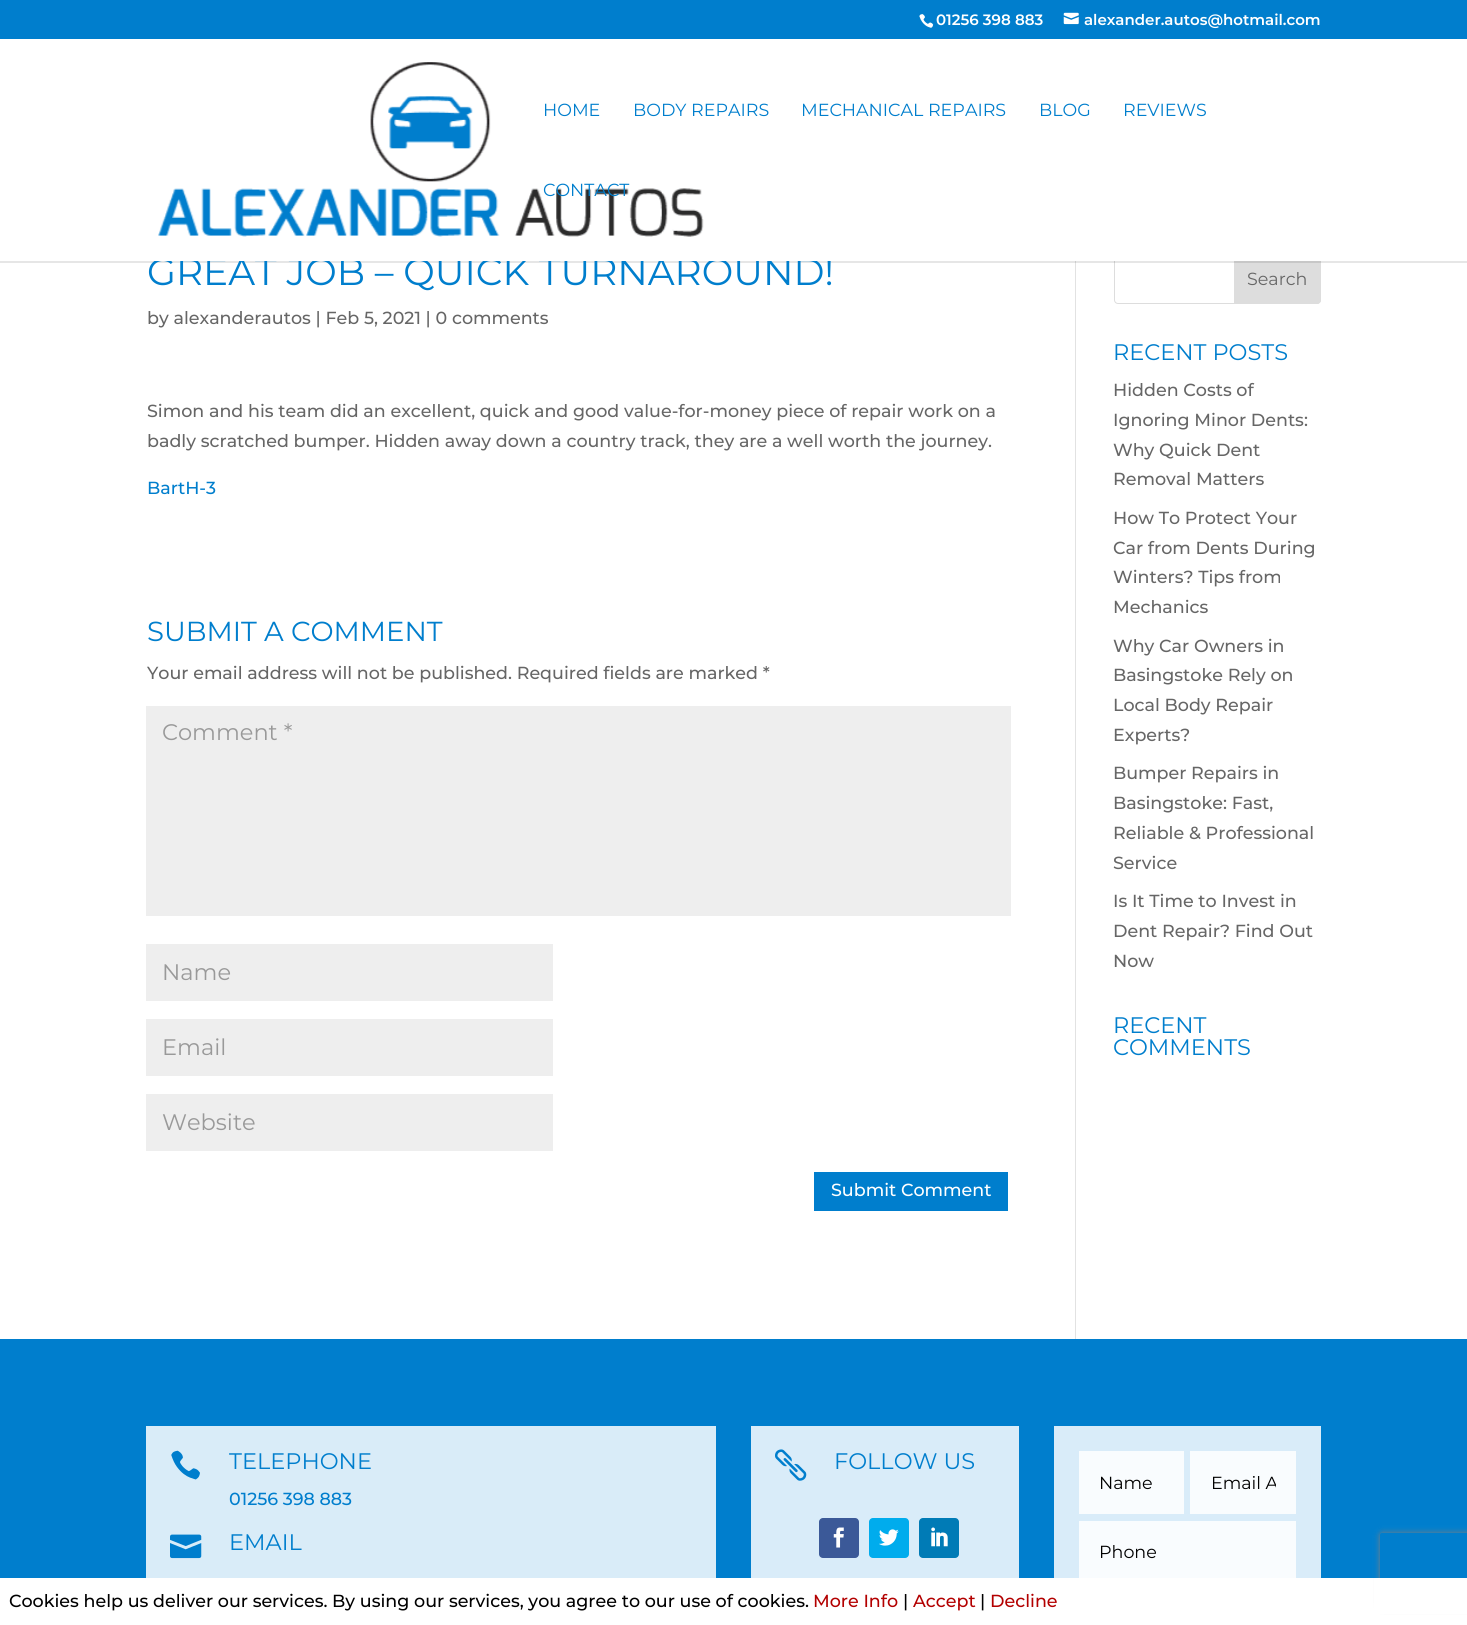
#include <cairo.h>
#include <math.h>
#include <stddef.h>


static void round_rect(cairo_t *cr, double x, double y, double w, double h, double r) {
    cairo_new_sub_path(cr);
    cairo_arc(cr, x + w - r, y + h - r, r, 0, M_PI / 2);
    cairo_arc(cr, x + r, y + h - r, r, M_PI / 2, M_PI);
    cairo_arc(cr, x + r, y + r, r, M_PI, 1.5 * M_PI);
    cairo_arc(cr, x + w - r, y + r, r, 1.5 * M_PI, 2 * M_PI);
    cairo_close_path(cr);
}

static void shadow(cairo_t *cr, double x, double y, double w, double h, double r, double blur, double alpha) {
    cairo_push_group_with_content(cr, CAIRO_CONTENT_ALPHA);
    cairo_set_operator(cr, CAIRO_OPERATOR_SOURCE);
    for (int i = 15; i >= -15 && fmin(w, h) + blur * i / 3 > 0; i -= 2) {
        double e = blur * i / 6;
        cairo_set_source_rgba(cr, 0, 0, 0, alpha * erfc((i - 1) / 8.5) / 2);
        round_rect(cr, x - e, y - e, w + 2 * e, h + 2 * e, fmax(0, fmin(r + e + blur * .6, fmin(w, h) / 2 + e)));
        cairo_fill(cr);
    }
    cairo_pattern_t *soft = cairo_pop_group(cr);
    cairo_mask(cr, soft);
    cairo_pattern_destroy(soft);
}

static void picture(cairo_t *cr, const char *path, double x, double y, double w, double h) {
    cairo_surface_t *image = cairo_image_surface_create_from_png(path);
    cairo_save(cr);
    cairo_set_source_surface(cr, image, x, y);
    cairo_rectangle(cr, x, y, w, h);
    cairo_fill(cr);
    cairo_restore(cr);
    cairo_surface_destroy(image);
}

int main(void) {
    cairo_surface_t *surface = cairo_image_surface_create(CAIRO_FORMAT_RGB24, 1467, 1625);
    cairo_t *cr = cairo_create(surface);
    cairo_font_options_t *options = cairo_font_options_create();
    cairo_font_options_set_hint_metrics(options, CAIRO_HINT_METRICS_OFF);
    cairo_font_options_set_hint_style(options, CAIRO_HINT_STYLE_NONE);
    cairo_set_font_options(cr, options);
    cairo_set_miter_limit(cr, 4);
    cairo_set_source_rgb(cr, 1, 1, 1);
    cairo_paint(cr);
    cairo_set_source_rgb(cr, 0, 0.494, 0.804);
    cairo_rectangle(cr, 0, 0, 1467, 39);
    cairo_fill(cr);
    picture(cr, "img1.png", 919, 14, 15, 14);
    cairo_select_font_face(cr, "Montserrat SemiBold", CAIRO_FONT_SLANT_NORMAL, CAIRO_FONT_WEIGHT_NORMAL);
    cairo_set_font_size(cr, 15);
    cairo_set_source_rgb(cr, 1, 1, 1);
    cairo_move_to(cr, 936, 25);
    cairo_show_text(cr, "01256 398 883");
    picture(cr, "img2.png", 1063, 12, 16, 13);
    cairo_move_to(cr, 1084, 25);
    cairo_show_text(cr, "alexander.autos@hotmail.com");
    round_rect(cr, 1114.5, 254.5, 206, 49, 3.5);
    cairo_set_source_rgb(cr, 0.867, 0.867, 0.867);
    cairo_set_line_width(cr, 1);
    cairo_stroke(cr);
    cairo_new_path(cr);
    cairo_move_to(cr, 1234.5, 254.5);
    cairo_line_to(cr, 1317, 254.5);
    cairo_curve_to(cr, 1319, 254.5, 1320.5, 256, 1320.5, 258);
    cairo_line_to(cr, 1320.5, 300);
    cairo_curve_to(cr, 1320.5, 302, 1319, 303.5, 1317, 303.5);
    cairo_line_to(cr, 1234.5, 303.5);
    cairo_close_path(cr);
    cairo_fill_preserve(cr);
    cairo_stroke(cr);
    cairo_set_source_rgb(cr, 0.886, 0.886, 0.886);
    cairo_rectangle(cr, 1075, 261, 1, 1078);
    cairo_fill(cr);
    cairo_set_source_rgba(cr, 0, 0, 0, 0.1);
    cairo_new_path(cr);
    cairo_move_to(cr, 0, 261);
    cairo_line_to(cr, 0, 263);
    cairo_line_to(cr, 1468, 263);
    cairo_line_to(cr, 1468, 40);
    cairo_line_to(cr, 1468, 261);
    cairo_close_path(cr);
    cairo_fill(cr);
    cairo_select_font_face(cr, "Montserrat", CAIRO_FONT_SLANT_NORMAL, CAIRO_FONT_WEIGHT_NORMAL);
    cairo_set_font_size(cr, 37.5);
    cairo_set_source_rgb(cr, 0, 0.494, 0.804);
    cairo_move_to(cr, 147, 285);
    cairo_show_text(cr, "GREAT JOB – QUICK TURNAROUND!");
    cairo_set_source_rgb(cr, 1, 1, 1);
    cairo_rectangle(cr, 154, 254, 1167, 7);
    cairo_fill(cr);
    picture(cr, "img3.png", 158, 62, 546, 175);
    cairo_set_font_size(cr, 17.5);
    cairo_set_source_rgb(cr, 0, 0.494, 0.804);
    cairo_move_to(cr, 543, 116);
    cairo_show_text(cr, "HOME");
    cairo_move_to(cr, 633, 116);
    cairo_show_text(cr, "BODY REPAIRS");
    cairo_move_to(cr, 801, 116);
    cairo_show_text(cr, "MECHANICAL REPAIRS");
    cairo_move_to(cr, 1039, 116);
    cairo_show_text(cr, "BLOG");
    cairo_move_to(cr, 1123, 116);
    cairo_show_text(cr, "REVIEWS");
    cairo_move_to(cr, 543, 196);
    cairo_show_text(cr, "CONTACT");
    cairo_select_font_face(cr, "Montserrat Medium", CAIRO_FONT_SLANT_NORMAL, CAIRO_FONT_WEIGHT_NORMAL);
    cairo_set_source_rgb(cr, 0.4, 0.4, 0.4);
    cairo_move_to(cr, 147, 324);
    cairo_show_text(cr, "by alexanderautos | Feb 5, 2021 | 0 comments");
    cairo_move_to(cr, 147, 417);
    cairo_show_text(cr, "Simon and his team did an excellent, quick and good value-for-money piece of repair work on a");
    cairo_move_to(cr, 147, 447);
    cairo_show_text(cr, "badly scratched bumper. Hidden away down a country track, they are a well worth the journey.");
    cairo_set_source_rgb(cr, 0, 0.494, 0.804);
    cairo_move_to(cr, 147, 494);
    cairo_show_text(cr, "BartH-3");
    cairo_select_font_face(cr, "Montserrat", CAIRO_FONT_SLANT_NORMAL, CAIRO_FONT_WEIGHT_NORMAL);
    cairo_set_font_size(cr, 27.5);
    cairo_move_to(cr, 147, 641);
    cairo_show_text(cr, "SUBMIT A COMMENT");
    cairo_select_font_face(cr, "Montserrat Medium", CAIRO_FONT_SLANT_NORMAL, CAIRO_FONT_WEIGHT_NORMAL);
    cairo_set_font_size(cr, 17.5);
    cairo_set_source_rgb(cr, 0.4, 0.4, 0.4);
    cairo_move_to(cr, 147, 679);
    cairo_show_text(cr, "Your email address will not be published. Required fields are marked *");
    cairo_set_source_rgb(cr, 0.933, 0.933, 0.933);
    cairo_rectangle(cr, 146, 706, 865, 210);
    cairo_fill(cr);
    cairo_select_font_face(cr, "Montserrat", CAIRO_FONT_SLANT_NORMAL, CAIRO_FONT_WEIGHT_NORMAL);
    cairo_set_font_size(cr, 22.5);
    cairo_set_source_rgb(cr, 0.6, 0.6, 0.6);
    cairo_move_to(cr, 162, 740);
    cairo_show_text(cr, "Comment *");
    cairo_set_source_rgb(cr, 0.933, 0.933, 0.933);
    cairo_rectangle(cr, 146, 944, 407, 57);
    cairo_fill(cr);
    cairo_set_source_rgb(cr, 0.6, 0.6, 0.6);
    cairo_move_to(cr, 162, 980);
    cairo_show_text(cr, "Name");
    cairo_set_source_rgb(cr, 0.933, 0.933, 0.933);
    cairo_rectangle(cr, 146, 1019, 407, 57);
    cairo_fill(cr);
    cairo_set_source_rgb(cr, 0.6, 0.6, 0.6);
    cairo_move_to(cr, 162, 1055);
    cairo_show_text(cr, "Email");
    cairo_set_source_rgb(cr, 0.933, 0.933, 0.933);
    cairo_rectangle(cr, 146, 1094, 407, 57);
    cairo_fill(cr);
    cairo_set_source_rgb(cr, 0.6, 0.6, 0.6);
    cairo_move_to(cr, 162, 1130);
    cairo_show_text(cr, "Website");
    cairo_set_source_rgb(cr, 0, 0.494, 0.804);
    cairo_rectangle(cr, 814, 1172, 194, 39);
    cairo_fill(cr);
    cairo_select_font_face(cr, "Montserrat Medium", CAIRO_FONT_SLANT_NORMAL, CAIRO_FONT_WEIGHT_NORMAL);
    cairo_set_font_size(cr, 17.5);
    cairo_set_source_rgb(cr, 1, 1, 1);
    cairo_move_to(cr, 831, 1196);
    cairo_show_text(cr, "Submit Comment");
    cairo_select_font_face(cr, "Montserrat", CAIRO_FONT_SLANT_NORMAL, CAIRO_FONT_WEIGHT_NORMAL);
    cairo_set_source_rgb(cr, 0.4, 0.4, 0.4);
    cairo_move_to(cr, 1247, 285);
    cairo_show_text(cr, "Search");
    cairo_set_font_size(cr, 22.5);
    cairo_set_source_rgb(cr, 0, 0.494, 0.804);
    cairo_move_to(cr, 1113, 360);
    cairo_show_text(cr, "RECENT POSTS");
    cairo_select_font_face(cr, "Montserrat Medium", CAIRO_FONT_SLANT_NORMAL, CAIRO_FONT_WEIGHT_NORMAL);
    cairo_set_font_size(cr, 17.5);
    cairo_set_source_rgb(cr, 0.4, 0.4, 0.4);
    cairo_move_to(cr, 1113, 396);
    cairo_show_text(cr, "Hidden Costs of");
    cairo_move_to(cr, 1113, 426);
    cairo_show_text(cr, "Ignoring Minor Dents:");
    cairo_move_to(cr, 1113, 456);
    cairo_show_text(cr, "Why Quick Dent");
    cairo_move_to(cr, 1113, 485);
    cairo_show_text(cr, "Removal Matters");
    cairo_move_to(cr, 1113, 524);
    cairo_show_text(cr, "How To Protect Your");
    cairo_move_to(cr, 1113, 554);
    cairo_show_text(cr, "Car from Dents During");
    cairo_move_to(cr, 1113, 583);
    cairo_show_text(cr, "Winters? Tips from");
    cairo_move_to(cr, 1113, 613);
    cairo_show_text(cr, "Mechanics");
    cairo_move_to(cr, 1113, 652);
    cairo_show_text(cr, "Why Car Owners in");
    cairo_move_to(cr, 1113, 681);
    cairo_show_text(cr, "Basingstoke Rely on");
    cairo_move_to(cr, 1113, 711);
    cairo_show_text(cr, "Local Body Repair");
    cairo_move_to(cr, 1113, 741);
    cairo_show_text(cr, "Experts?");
    cairo_move_to(cr, 1113, 779);
    cairo_show_text(cr, "Bumper Repairs in");
    cairo_move_to(cr, 1113, 809);
    cairo_show_text(cr, "Basingstoke: Fast,");
    cairo_move_to(cr, 1113, 839);
    cairo_show_text(cr, "Reliable & Professional");
    cairo_move_to(cr, 1113, 869);
    cairo_show_text(cr, "Service");
    cairo_move_to(cr, 1113, 907);
    cairo_show_text(cr, "Is It Time to Invest in");
    cairo_move_to(cr, 1113, 937);
    cairo_show_text(cr, "Dent Repair? Find Out");
    cairo_move_to(cr, 1113, 967);
    cairo_show_text(cr, "Now");
    cairo_select_font_face(cr, "Montserrat", CAIRO_FONT_SLANT_NORMAL, CAIRO_FONT_WEIGHT_NORMAL);
    cairo_set_font_size(cr, 22.5);
    cairo_set_source_rgb(cr, 0, 0.494, 0.804);
    cairo_move_to(cr, 1113, 1033);
    cairo_show_text(cr, "RECENT");
    cairo_move_to(cr, 1113, 1055);
    cairo_show_text(cr, "COMMENTS");
    cairo_rectangle(cr, 0, 1339, 1467, 239);
    cairo_fill(cr);
    cairo_set_source_rgb(cr, 0.851, 0.925, 0.969);
    cairo_rectangle(cr, 146, 1426, 570, 152);
    cairo_fill(cr);
    picture(cr, "img4.png", 171, 1450, 29, 30);
    cairo_set_source_rgb(cr, 0, 0.494, 0.804);
    cairo_move_to(cr, 229, 1469);
    cairo_show_text(cr, "TELEPHONE");
    cairo_select_font_face(cr, "Montserrat Medium", CAIRO_FONT_SLANT_NORMAL, CAIRO_FONT_WEIGHT_NORMAL);
    cairo_set_font_size(cr, 17.5);
    cairo_move_to(cr, 229, 1505);
    cairo_show_text(cr, "01256 398 883");
    picture(cr, "img5.png", 170, 1534, 32, 25);
    cairo_select_font_face(cr, "Montserrat", CAIRO_FONT_SLANT_NORMAL, CAIRO_FONT_WEIGHT_NORMAL);
    cairo_set_font_size(cr, 22.5);
    cairo_move_to(cr, 229, 1550);
    cairo_show_text(cr, "EMAIL");
    cairo_set_source_rgb(cr, 0.851, 0.925, 0.973);
    cairo_rectangle(cr, 751, 1426, 268, 152);
    cairo_fill(cr);
    picture(cr, "img6.png", 775, 1449, 32, 32);
    cairo_set_source_rgb(cr, 0, 0.494, 0.804);
    cairo_move_to(cr, 834, 1469);
    cairo_show_text(cr, "FOLLOW US");
    cairo_set_source_rgb(cr, 0.231, 0.349, 0.596);
    round_rect(cr, 819, 1518, 40, 40, 4);
    cairo_fill(cr);
    picture(cr, "img7.png", 833, 1527, 11, 21);
    cairo_set_source_rgb(cr, 0, 0.675, 0.929);
    round_rect(cr, 869, 1518, 40, 40, 4);
    cairo_fill(cr);
    picture(cr, "img8.png", 879, 1529, 20, 17);
    cairo_set_source_rgb(cr, 0, 0.482, 0.714);
    round_rect(cr, 919, 1518, 40, 40, 4);
    cairo_fill(cr);
    picture(cr, "img9.png", 931, 1527, 17, 20);
    cairo_set_source_rgb(cr, 0.851, 0.925, 0.973);
    cairo_rectangle(cr, 1054, 1426, 267, 152);
    cairo_fill(cr);
    cairo_set_source_rgb(cr, 0.976, 0.988, 0.996);
    cairo_rectangle(cr, 1079, 1451, 105, 63);
    cairo_fill(cr);
    cairo_set_font_size(cr, 17.5);
    cairo_set_source_rgb(cr, 0, 0, 0);
    cairo_move_to(cr, 1099, 1489);
    cairo_show_text(cr, "Name");
    cairo_set_source_rgb(cr, 0.976, 0.988, 0.996);
    cairo_rectangle(cr, 1190, 1451, 106, 63);
    cairo_fill(cr);
    cairo_save(cr);
    cairo_rectangle(cr, 1210, 1471, 66, 23);
    cairo_clip(cr);
    cairo_set_source_rgb(cr, 0, 0, 0);
    cairo_move_to(cr, 1211, 1489);
    cairo_show_text(cr, "Email A");
    cairo_restore(cr);
    cairo_rectangle(cr, 1079, 1521, 217, 57);
    cairo_fill(cr);
    cairo_set_source_rgb(cr, 0, 0, 0);
    cairo_move_to(cr, 1099, 1558);
    cairo_show_text(cr, "Phone");
    cairo_save(cr);
    cairo_set_fill_rule(cr, CAIRO_FILL_RULE_EVEN_ODD);
    cairo_new_path(cr);
    cairo_move_to(cr, 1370, 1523);
    cairo_line_to(cr, 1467, 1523);
    cairo_line_to(cr, 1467, 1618);
    cairo_line_to(cr, 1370, 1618);
    cairo_close_path(cr);
    cairo_move_to(cr, 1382.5, 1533);
    cairo_line_to(cr, 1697.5, 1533);
    cairo_curve_to(cr, 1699, 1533, 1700, 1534, 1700, 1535.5);
    cairo_line_to(cr, 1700, 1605.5);
    cairo_curve_to(cr, 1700, 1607, 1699, 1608, 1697.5, 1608);
    cairo_line_to(cr, 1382.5, 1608);
    cairo_curve_to(cr, 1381, 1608, 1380, 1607, 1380, 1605.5);
    cairo_line_to(cr, 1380, 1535.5);
    cairo_curve_to(cr, 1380, 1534, 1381, 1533, 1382.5, 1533);
    cairo_close_path(cr);
    cairo_clip(cr);
    cairo_set_source_rgb(cr, 0.502, 0.502, 0.502);
    shadow(cr, 1380, 1533, 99, 75, 2.5, 3, 1);
    cairo_restore(cr);
    cairo_set_source_rgb(cr, 1, 1, 1);
    cairo_rectangle(cr, 1374, 1578, 93, 36);
    cairo_fill(cr);
    cairo_select_font_face(cr, "Montserrat Medium", CAIRO_FONT_SLANT_NORMAL, CAIRO_FONT_WEIGHT_NORMAL);
    cairo_set_source_rgb(cr, 0, 0, 0);
    cairo_move_to(cr, 9, 1607);
    cairo_show_text(cr, "Cookies help us deliver our services. By using our services, you agree to our use of cookies.");
    cairo_set_source_rgb(cr, 0.702, 0, 0);
    cairo_move_to(cr, 813, 1607);
    cairo_show_text(cr, "More Info");
    cairo_set_source_rgb(cr, 0, 0, 0);
    cairo_move_to(cr, 903, 1607);
    cairo_show_text(cr, "|");
    cairo_set_source_rgb(cr, 0.702, 0, 0);
    cairo_move_to(cr, 913, 1607);
    cairo_show_text(cr, "Accept");
    cairo_set_source_rgb(cr, 0, 0, 0);
    cairo_move_to(cr, 980, 1607);
    cairo_show_text(cr, "|");
    cairo_set_source_rgb(cr, 0.702, 0, 0);
    cairo_move_to(cr, 990, 1607);
    cairo_show_text(cr, "Decline");
    cairo_surface_write_to_png(surface, "page.png");
    cairo_font_options_destroy(options);
    cairo_destroy(cr);
    cairo_surface_destroy(surface);
    return 0;
}
